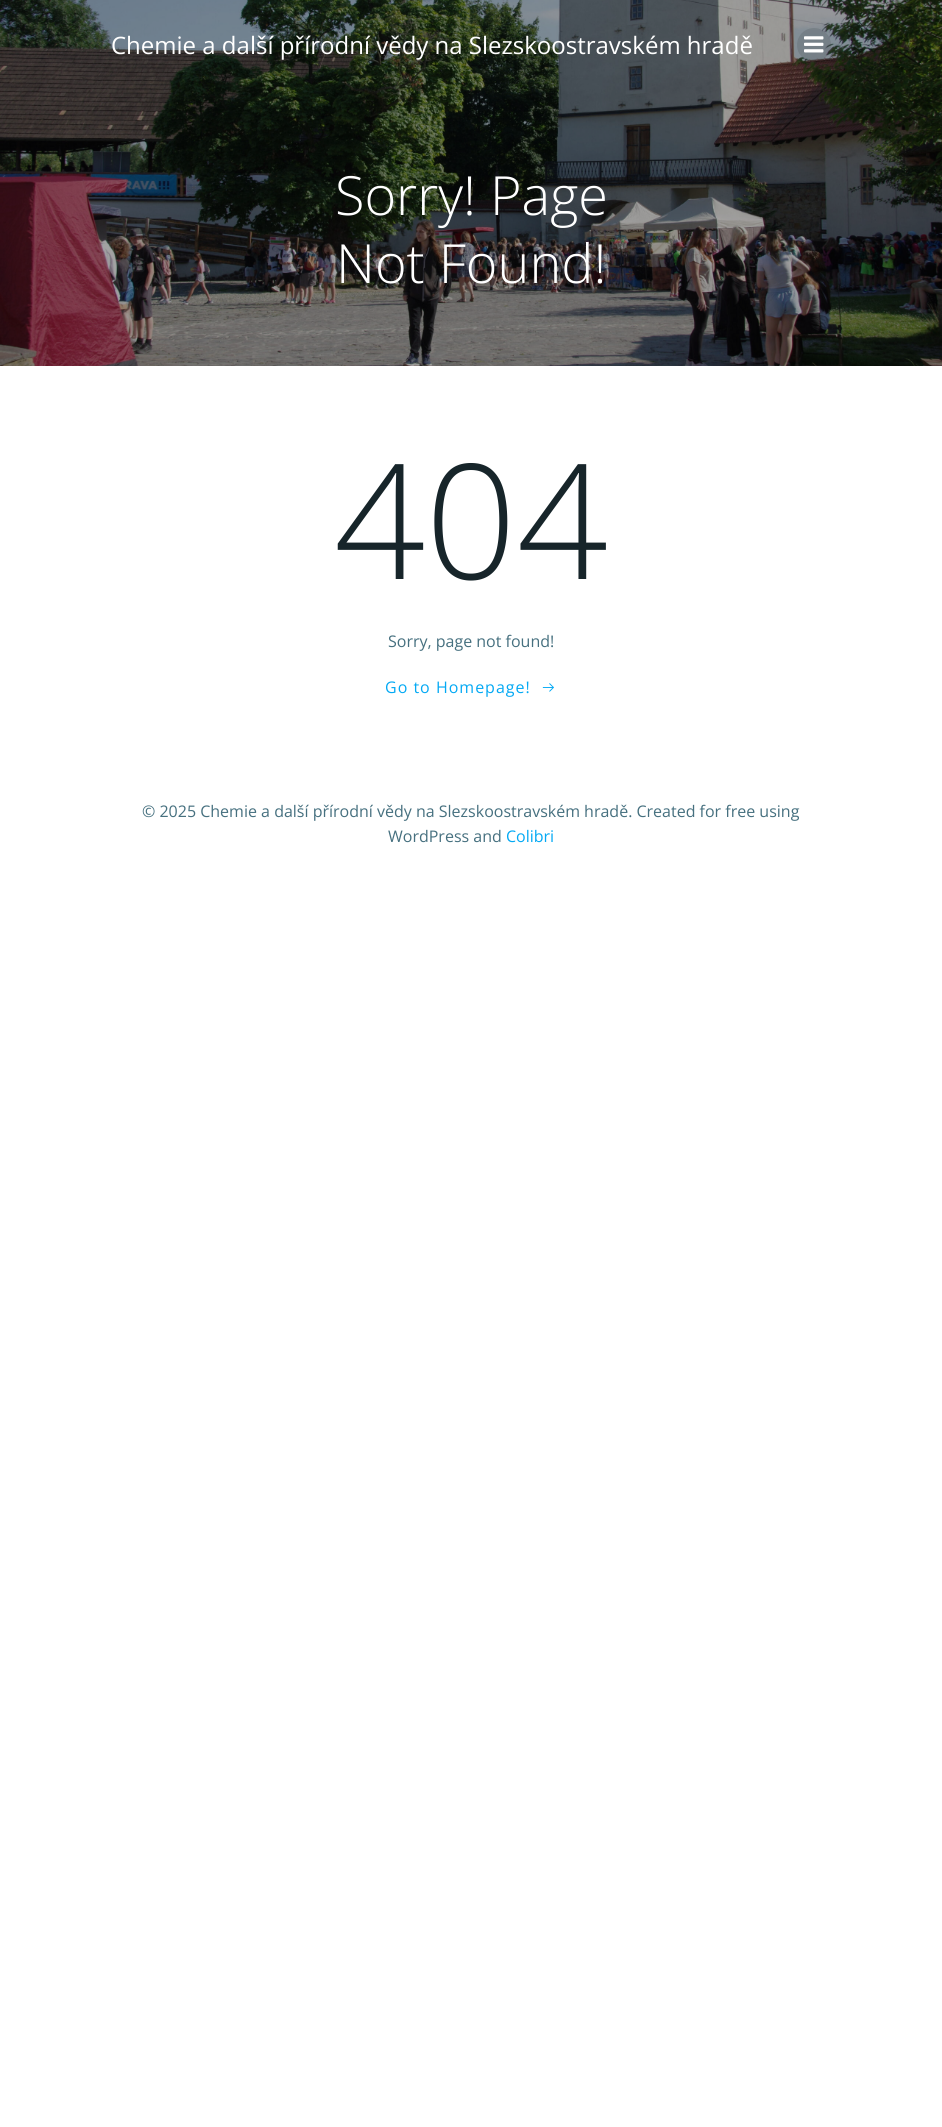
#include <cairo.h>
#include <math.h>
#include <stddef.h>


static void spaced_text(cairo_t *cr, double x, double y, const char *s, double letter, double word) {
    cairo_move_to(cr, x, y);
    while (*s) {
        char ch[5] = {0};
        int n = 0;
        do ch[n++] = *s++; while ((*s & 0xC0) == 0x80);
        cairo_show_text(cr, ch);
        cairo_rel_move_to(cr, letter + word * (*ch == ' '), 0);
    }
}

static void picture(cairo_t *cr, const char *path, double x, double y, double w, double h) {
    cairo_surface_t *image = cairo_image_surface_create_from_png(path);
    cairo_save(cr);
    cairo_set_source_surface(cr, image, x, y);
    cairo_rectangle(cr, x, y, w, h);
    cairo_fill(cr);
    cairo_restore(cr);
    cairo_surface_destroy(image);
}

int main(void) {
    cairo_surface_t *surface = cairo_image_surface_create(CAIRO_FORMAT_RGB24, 942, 2127);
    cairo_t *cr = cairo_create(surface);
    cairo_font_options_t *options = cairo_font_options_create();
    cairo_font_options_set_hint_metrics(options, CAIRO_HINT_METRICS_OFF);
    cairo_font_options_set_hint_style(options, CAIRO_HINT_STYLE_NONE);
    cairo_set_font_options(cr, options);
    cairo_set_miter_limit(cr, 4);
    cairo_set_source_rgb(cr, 1, 1, 1);
    cairo_paint(cr);
    picture(cr, "img2.png", 0, 0, 942, 366);
    cairo_select_font_face(cr, "Open Sans", CAIRO_FONT_SLANT_NORMAL, CAIRO_FONT_WEIGHT_NORMAL);
    cairo_set_font_size(cr, 24);
    cairo_set_source_rgb(cr, 1, 1, 1);
    cairo_move_to(cr, 111, 54);
    cairo_show_text(cr, "Chemie a další přírodní vědy na Slezskoostravském hradě");
    cairo_set_source_rgba(cr, 0, 0, 0, 0.1);
    cairo_new_path(cr);
    cairo_arc(cr, 814, 45, 17, 0, 2 * M_PI);
    cairo_fill(cr);
    picture(cr, "img1.png", 804, 36, 20, 17);
    cairo_select_font_face(cr, "Open Sans Light", CAIRO_FONT_SLANT_NORMAL, CAIRO_FONT_WEIGHT_NORMAL);
    cairo_set_font_size(cr, 54);
    cairo_set_source_rgb(cr, 1, 1, 1);
    cairo_move_to(cr, 335, 215);
    cairo_show_text(cr, "Sorry! Page");
    cairo_move_to(cr, 336, 283);
    cairo_show_text(cr, "Not Found!");
    cairo_set_font_size(cr, 160);
    cairo_set_source_rgb(cr, 0.09, 0.145, 0.165);
    cairo_move_to(cr, 334, 579);
    cairo_show_text(cr, "404");
    cairo_select_font_face(cr, "Open Sans", CAIRO_FONT_SLANT_NORMAL, CAIRO_FONT_WEIGHT_NORMAL);
    cairo_set_font_size(cr, 16);
    cairo_set_source_rgb(cr, 0.275, 0.439, 0.498);
    cairo_move_to(cr, 388, 647);
    cairo_show_text(cr, "Sorry, page not found!");
    cairo_set_source_rgb(cr, 0.012, 0.663, 0.957);
    spaced_text(cr, 385, 693, "Go to Homepage!", 1, 0);
    picture(cr, "img3.png", 542, 683, 12, 9);
    cairo_set_source_rgb(cr, 0.275, 0.439, 0.498);
    cairo_move_to(cr, 142, 817);
    cairo_show_text(cr, "© 2025 Chemie a další přírodní vědy na Slezskoostravském hradě. Created for free using");
    cairo_move_to(cr, 388, 842);
    cairo_show_text(cr, "WordPress and");
    cairo_set_source_rgb(cr, 0.012, 0.663, 0.957);
    cairo_move_to(cr, 506, 842);
    cairo_show_text(cr, "Colibri");
    cairo_surface_write_to_png(surface, "page.png");
    cairo_font_options_destroy(options);
    cairo_destroy(cr);
    cairo_surface_destroy(surface);
    return 0;
}
